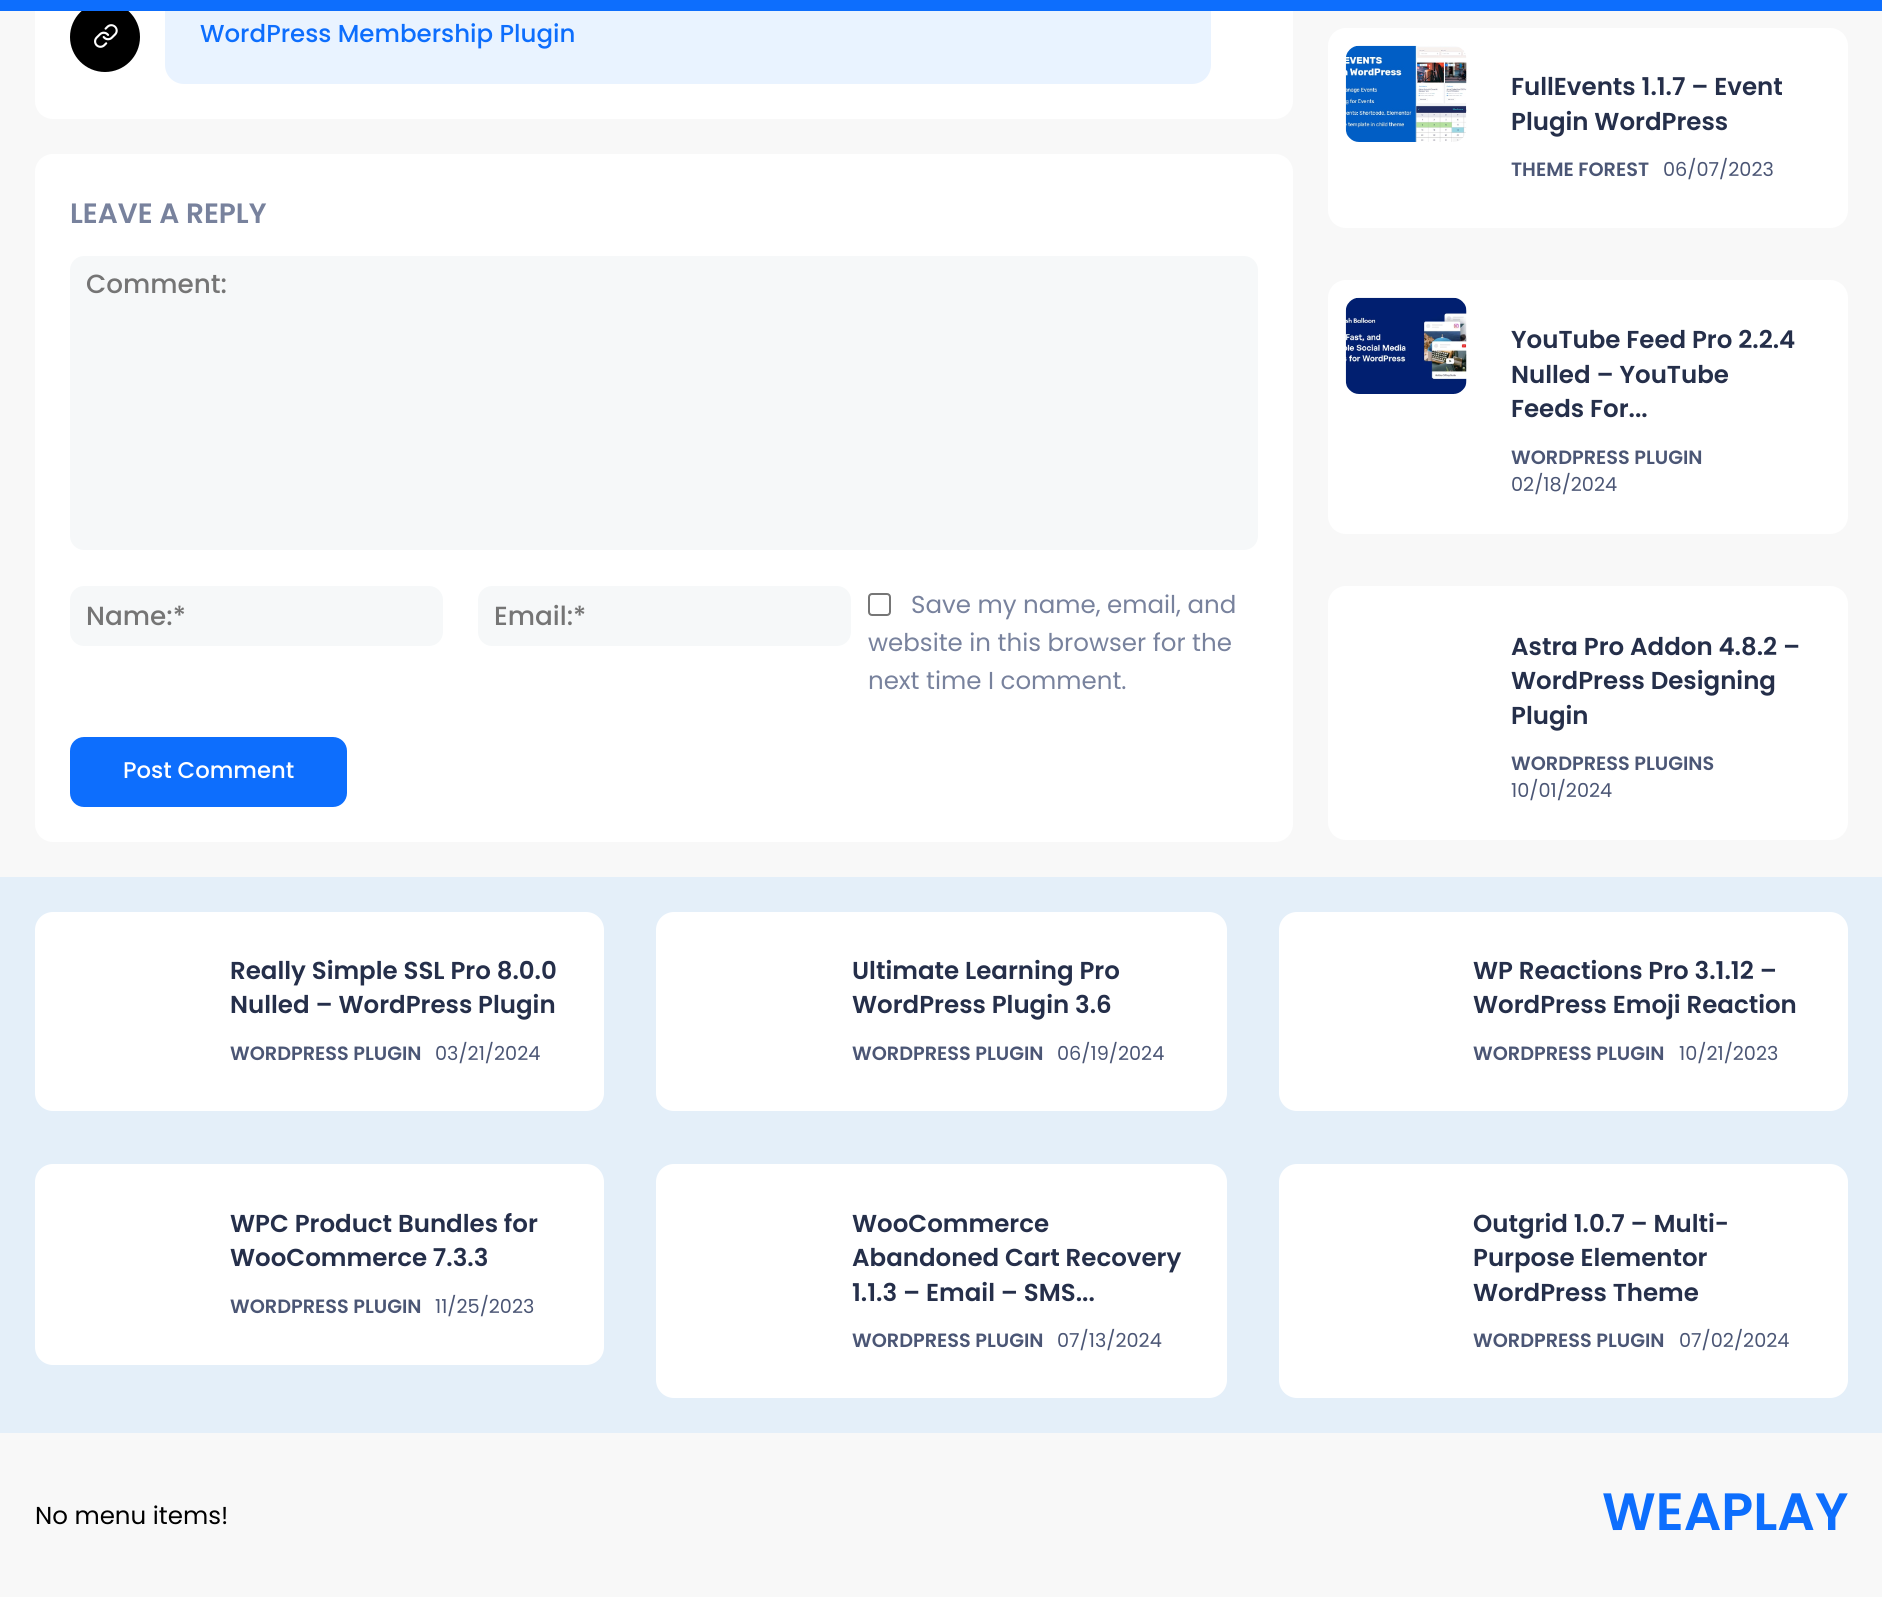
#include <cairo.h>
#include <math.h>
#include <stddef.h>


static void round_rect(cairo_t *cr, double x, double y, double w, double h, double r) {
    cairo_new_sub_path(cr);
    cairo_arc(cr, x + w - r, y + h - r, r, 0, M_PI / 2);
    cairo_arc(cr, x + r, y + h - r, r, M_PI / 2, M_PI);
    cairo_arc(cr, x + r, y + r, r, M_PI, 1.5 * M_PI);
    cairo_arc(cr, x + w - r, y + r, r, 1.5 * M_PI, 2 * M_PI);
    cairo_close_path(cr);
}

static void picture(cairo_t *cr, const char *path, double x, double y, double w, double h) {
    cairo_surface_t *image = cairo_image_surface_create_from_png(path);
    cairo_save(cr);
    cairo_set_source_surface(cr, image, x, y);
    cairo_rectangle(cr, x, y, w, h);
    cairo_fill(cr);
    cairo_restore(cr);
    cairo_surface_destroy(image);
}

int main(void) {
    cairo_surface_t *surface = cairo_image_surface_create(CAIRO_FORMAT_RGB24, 1882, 1597);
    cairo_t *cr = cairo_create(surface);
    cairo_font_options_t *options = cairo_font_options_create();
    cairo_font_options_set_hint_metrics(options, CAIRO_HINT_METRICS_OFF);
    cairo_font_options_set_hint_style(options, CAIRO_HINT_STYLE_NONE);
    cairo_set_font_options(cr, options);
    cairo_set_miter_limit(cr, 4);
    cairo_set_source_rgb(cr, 0.969, 0.969, 0.969);
    cairo_paint(cr);
    cairo_set_source_rgb(cr, 1, 1, 1);
    round_rect(cr, 35, -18, 1258, 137, 18);
    cairo_fill(cr);
    cairo_set_source_rgb(cr, 0, 0, 0);
    cairo_arc(cr, 105, 37, 35, 0, 2 * M_PI);
    cairo_fill(cr);
    cairo_set_source_rgb(cr, 0.914, 0.953, 1);
    round_rect(cr, 165, -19, 1046, 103, 19);
    cairo_fill(cr);
    cairo_set_source_rgb(cr, 0.051, 0.431, 0.992);
    cairo_rectangle(cr, 0, 0, 1882, 11);
    cairo_fill(cr);
    picture(cr, "img1.png", 94, 24, 24, 24);
    cairo_select_font_face(cr, "Poppins Medium", CAIRO_FONT_SLANT_NORMAL, CAIRO_FONT_WEIGHT_NORMAL);
    cairo_set_font_size(cr, 24.5);
    cairo_move_to(cr, 200, 42);
    cairo_show_text(cr, "WordPress Membership Plugin");
    cairo_set_source_rgb(cr, 1, 1, 1);
    round_rect(cr, 35, 154, 1258, 688, 18);
    cairo_fill(cr);
    cairo_select_font_face(cr, "Poppins SemiBold", CAIRO_FONT_SLANT_NORMAL, CAIRO_FONT_WEIGHT_NORMAL);
    cairo_set_font_size(cr, 28);
    cairo_set_source_rgb(cr, 0.471, 0.51, 0.616);
    cairo_move_to(cr, 70, 223);
    cairo_show_text(cr, "LEAVE A REPLY");
    cairo_set_source_rgb(cr, 0.961, 0.969, 0.973);
    round_rect(cr, 70, 256, 1188, 294, 14);
    cairo_fill(cr);
    cairo_select_font_face(cr, "Poppins Medium", CAIRO_FONT_SLANT_NORMAL, CAIRO_FONT_WEIGHT_NORMAL);
    cairo_set_font_size(cr, 26.25);
    cairo_set_source_rgb(cr, 0.459, 0.459, 0.459);
    cairo_move_to(cr, 86, 293);
    cairo_show_text(cr, "Comment:");
    cairo_set_source_rgb(cr, 0.961, 0.969, 0.973);
    round_rect(cr, 70, 586, 373, 60, 14);
    cairo_fill(cr);
    cairo_set_source_rgb(cr, 0.459, 0.459, 0.459);
    cairo_move_to(cr, 86, 625);
    cairo_show_text(cr, "Name:*");
    cairo_set_source_rgb(cr, 0.961, 0.969, 0.973);
    round_rect(cr, 478, 586, 373, 60, 14);
    cairo_fill(cr);
    cairo_set_source_rgb(cr, 0.459, 0.459, 0.459);
    cairo_move_to(cr, 494, 625);
    cairo_show_text(cr, "Email:*");
    round_rect(cr, 869, 594, 21, 21, 3);
    cairo_set_source_rgb(cr, 0.463, 0.463, 0.463);
    cairo_stroke(cr);
    cairo_select_font_face(cr, "Poppins", CAIRO_FONT_SLANT_NORMAL, CAIRO_FONT_WEIGHT_NORMAL);
    cairo_set_font_size(cr, 24.5);
    cairo_set_source_rgb(cr, 0.471, 0.51, 0.616);
    cairo_move_to(cr, 911, 613);
    cairo_show_text(cr, "Save my name, email, and");
    cairo_move_to(cr, 868, 651);
    cairo_show_text(cr, "website in this browser for the");
    cairo_move_to(cr, 868, 689);
    cairo_show_text(cr, "next time I comment.");
    cairo_set_source_rgb(cr, 0.051, 0.431, 0.992);
    round_rect(cr, 70, 737, 277, 70, 14);
    cairo_fill(cr);
    cairo_select_font_face(cr, "Poppins Medium", CAIRO_FONT_SLANT_NORMAL, CAIRO_FONT_WEIGHT_NORMAL);
    cairo_set_font_size(cr, 22.75);
    cairo_set_source_rgb(cr, 1, 1, 1);
    cairo_move_to(cr, 123, 778);
    cairo_show_text(cr, "Post Comment");
    round_rect(cr, 1328, 28, 520, 200, 18);
    cairo_fill(cr);
    picture(cr, "img2.png", 1345, 45, 122, 97);
    cairo_select_font_face(cr, "Poppins SemiBold", CAIRO_FONT_SLANT_NORMAL, CAIRO_FONT_WEIGHT_NORMAL);
    cairo_set_font_size(cr, 24.5);
    cairo_set_source_rgb(cr, 0.145, 0.184, 0.29);
    cairo_move_to(cr, 1511, 95);
    cairo_show_text(cr, "FullEvents 1.1.7 – Event");
    cairo_move_to(cr, 1511, 130);
    cairo_show_text(cr, "Plugin WordPress");
    cairo_set_font_size(cr, 19.25);
    cairo_set_source_rgb(cr, 0.294, 0.337, 0.459);
    cairo_move_to(cr, 1511, 176);
    cairo_show_text(cr, "THEME FOREST");
    cairo_select_font_face(cr, "Poppins", CAIRO_FONT_SLANT_NORMAL, CAIRO_FONT_WEIGHT_NORMAL);
    cairo_move_to(cr, 1663, 176);
    cairo_show_text(cr, "06/07/2023");
    cairo_set_source_rgb(cr, 1, 1, 1);
    round_rect(cr, 1328, 280, 520, 254, 18);
    cairo_fill(cr);
    picture(cr, "img3.png", 1345, 297, 122, 97);
    cairo_select_font_face(cr, "Poppins SemiBold", CAIRO_FONT_SLANT_NORMAL, CAIRO_FONT_WEIGHT_NORMAL);
    cairo_set_font_size(cr, 24.5);
    cairo_set_source_rgb(cr, 0.145, 0.184, 0.29);
    cairo_move_to(cr, 1511, 348);
    cairo_show_text(cr, "YouTube Feed Pro 2.2.4");
    cairo_move_to(cr, 1511, 383);
    cairo_show_text(cr, "Nulled – YouTube");
    cairo_move_to(cr, 1511, 417);
    cairo_show_text(cr, "Feeds For...");
    cairo_set_font_size(cr, 19.25);
    cairo_set_source_rgb(cr, 0.294, 0.337, 0.459);
    cairo_move_to(cr, 1511, 464);
    cairo_show_text(cr, "WORDPRESS PLUGIN");
    cairo_select_font_face(cr, "Poppins", CAIRO_FONT_SLANT_NORMAL, CAIRO_FONT_WEIGHT_NORMAL);
    cairo_move_to(cr, 1511, 491);
    cairo_show_text(cr, "02/18/2024");
    cairo_set_source_rgb(cr, 1, 1, 1);
    round_rect(cr, 1328, 586, 520, 254, 18);
    cairo_fill(cr);
    cairo_select_font_face(cr, "Poppins SemiBold", CAIRO_FONT_SLANT_NORMAL, CAIRO_FONT_WEIGHT_NORMAL);
    cairo_set_font_size(cr, 24.5);
    cairo_set_source_rgb(cr, 0.145, 0.184, 0.29);
    cairo_move_to(cr, 1511, 655);
    cairo_show_text(cr, "Astra Pro Addon 4.8.2 –");
    cairo_move_to(cr, 1511, 689);
    cairo_show_text(cr, "WordPress Designing");
    cairo_move_to(cr, 1511, 724);
    cairo_show_text(cr, "Plugin");
    cairo_set_font_size(cr, 19.25);
    cairo_set_source_rgb(cr, 0.294, 0.337, 0.459);
    cairo_move_to(cr, 1511, 770);
    cairo_show_text(cr, "WORDPRESS PLUGINS");
    cairo_select_font_face(cr, "Poppins", CAIRO_FONT_SLANT_NORMAL, CAIRO_FONT_WEIGHT_NORMAL);
    cairo_move_to(cr, 1511, 797);
    cairo_show_text(cr, "10/01/2024");
    cairo_set_source_rgb(cr, 0.894, 0.937, 0.976);
    cairo_rectangle(cr, 0, 877, 1882, 556);
    cairo_fill(cr);
    cairo_set_source_rgb(cr, 1, 1, 1);
    round_rect(cr, 35, 912, 569, 199, 18);
    cairo_fill(cr);
    cairo_select_font_face(cr, "Poppins SemiBold", CAIRO_FONT_SLANT_NORMAL, CAIRO_FONT_WEIGHT_NORMAL);
    cairo_set_font_size(cr, 24.5);
    cairo_set_source_rgb(cr, 0.145, 0.184, 0.29);
    cairo_move_to(cr, 230, 979);
    cairo_show_text(cr, "Really Simple SSL Pro 8.0.0");
    cairo_move_to(cr, 230, 1013);
    cairo_show_text(cr, "Nulled – WordPress Plugin");
    cairo_set_font_size(cr, 19.25);
    cairo_set_source_rgb(cr, 0.294, 0.337, 0.459);
    cairo_move_to(cr, 230, 1060);
    cairo_show_text(cr, "WORDPRESS PLUGIN");
    cairo_select_font_face(cr, "Poppins", CAIRO_FONT_SLANT_NORMAL, CAIRO_FONT_WEIGHT_NORMAL);
    cairo_move_to(cr, 435, 1060);
    cairo_show_text(cr, "03/21/2024");
    cairo_set_source_rgb(cr, 1, 1, 1);
    round_rect(cr, 656, 912, 571, 199, 18);
    cairo_fill(cr);
    cairo_select_font_face(cr, "Poppins SemiBold", CAIRO_FONT_SLANT_NORMAL, CAIRO_FONT_WEIGHT_NORMAL);
    cairo_set_font_size(cr, 24.5);
    cairo_set_source_rgb(cr, 0.145, 0.184, 0.29);
    cairo_move_to(cr, 852, 979);
    cairo_show_text(cr, "Ultimate Learning Pro");
    cairo_move_to(cr, 852, 1013);
    cairo_show_text(cr, "WordPress Plugin 3.6");
    cairo_set_font_size(cr, 19.25);
    cairo_set_source_rgb(cr, 0.294, 0.337, 0.459);
    cairo_move_to(cr, 852, 1060);
    cairo_show_text(cr, "WORDPRESS PLUGIN");
    cairo_select_font_face(cr, "Poppins", CAIRO_FONT_SLANT_NORMAL, CAIRO_FONT_WEIGHT_NORMAL);
    cairo_move_to(cr, 1057, 1060);
    cairo_show_text(cr, "06/19/2024");
    cairo_set_source_rgb(cr, 1, 1, 1);
    round_rect(cr, 1279, 912, 569, 199, 18);
    cairo_fill(cr);
    cairo_select_font_face(cr, "Poppins SemiBold", CAIRO_FONT_SLANT_NORMAL, CAIRO_FONT_WEIGHT_NORMAL);
    cairo_set_font_size(cr, 24.5);
    cairo_set_source_rgb(cr, 0.145, 0.184, 0.29);
    cairo_move_to(cr, 1473, 979);
    cairo_show_text(cr, "WP Reactions Pro 3.1.12 –");
    cairo_move_to(cr, 1473, 1013);
    cairo_show_text(cr, "WordPress Emoji Reaction");
    cairo_set_font_size(cr, 19.25);
    cairo_set_source_rgb(cr, 0.294, 0.337, 0.459);
    cairo_move_to(cr, 1473, 1060);
    cairo_show_text(cr, "WORDPRESS PLUGIN");
    cairo_select_font_face(cr, "Poppins", CAIRO_FONT_SLANT_NORMAL, CAIRO_FONT_WEIGHT_NORMAL);
    cairo_move_to(cr, 1679, 1060);
    cairo_show_text(cr, "10/21/2023");
    cairo_set_source_rgb(cr, 1, 1, 1);
    round_rect(cr, 35, 1164, 569, 201, 18);
    cairo_fill(cr);
    cairo_select_font_face(cr, "Poppins SemiBold", CAIRO_FONT_SLANT_NORMAL, CAIRO_FONT_WEIGHT_NORMAL);
    cairo_set_font_size(cr, 24.5);
    cairo_set_source_rgb(cr, 0.145, 0.184, 0.29);
    cairo_move_to(cr, 230, 1232);
    cairo_show_text(cr, "WPC Product Bundles for");
    cairo_move_to(cr, 230, 1266);
    cairo_show_text(cr, "WooCommerce 7.3.3");
    cairo_set_font_size(cr, 19.25);
    cairo_set_source_rgb(cr, 0.294, 0.337, 0.459);
    cairo_move_to(cr, 230, 1313);
    cairo_show_text(cr, "WORDPRESS PLUGIN");
    cairo_select_font_face(cr, "Poppins", CAIRO_FONT_SLANT_NORMAL, CAIRO_FONT_WEIGHT_NORMAL);
    cairo_move_to(cr, 435, 1313);
    cairo_show_text(cr, "11/25/2023");
    cairo_set_source_rgb(cr, 1, 1, 1);
    round_rect(cr, 656, 1164, 571, 234, 18);
    cairo_fill(cr);
    cairo_select_font_face(cr, "Poppins SemiBold", CAIRO_FONT_SLANT_NORMAL, CAIRO_FONT_WEIGHT_NORMAL);
    cairo_set_font_size(cr, 24.5);
    cairo_set_source_rgb(cr, 0.145, 0.184, 0.29);
    cairo_move_to(cr, 852, 1232);
    cairo_show_text(cr, "WooCommerce");
    cairo_move_to(cr, 852, 1266);
    cairo_show_text(cr, "Abandoned Cart Recovery");
    cairo_move_to(cr, 852, 1301);
    cairo_show_text(cr, "1.1.3 – Email – SMS...");
    cairo_set_font_size(cr, 19.25);
    cairo_set_source_rgb(cr, 0.294, 0.337, 0.459);
    cairo_move_to(cr, 852, 1347);
    cairo_show_text(cr, "WORDPRESS PLUGIN");
    cairo_select_font_face(cr, "Poppins", CAIRO_FONT_SLANT_NORMAL, CAIRO_FONT_WEIGHT_NORMAL);
    cairo_move_to(cr, 1057, 1347);
    cairo_show_text(cr, "07/13/2024");
    cairo_set_source_rgb(cr, 1, 1, 1);
    round_rect(cr, 1279, 1164, 569, 234, 18);
    cairo_fill(cr);
    cairo_select_font_face(cr, "Poppins SemiBold", CAIRO_FONT_SLANT_NORMAL, CAIRO_FONT_WEIGHT_NORMAL);
    cairo_set_font_size(cr, 24.5);
    cairo_set_source_rgb(cr, 0.145, 0.184, 0.29);
    cairo_move_to(cr, 1473, 1232);
    cairo_show_text(cr, "Outgrid 1.0.7 – Multi-");
    cairo_move_to(cr, 1473, 1266);
    cairo_show_text(cr, "Purpose Elementor");
    cairo_move_to(cr, 1473, 1301);
    cairo_show_text(cr, "WordPress Theme");
    cairo_set_font_size(cr, 19.25);
    cairo_set_source_rgb(cr, 0.294, 0.337, 0.459);
    cairo_move_to(cr, 1473, 1347);
    cairo_show_text(cr, "WORDPRESS PLUGIN");
    cairo_select_font_face(cr, "Poppins", CAIRO_FONT_SLANT_NORMAL, CAIRO_FONT_WEIGHT_NORMAL);
    cairo_move_to(cr, 1679, 1347);
    cairo_show_text(cr, "07/02/2024");
    cairo_set_font_size(cr, 24.5);
    cairo_set_source_rgb(cr, 0, 0, 0);
    cairo_move_to(cr, 35, 1524);
    cairo_show_text(cr, "No menu items!");
    cairo_select_font_face(cr, "Poppins SemiBold", CAIRO_FONT_SLANT_NORMAL, CAIRO_FONT_WEIGHT_NORMAL);
    cairo_set_font_size(cr, 52.5);
    cairo_set_source_rgb(cr, 0.051, 0.431, 0.992);
    cairo_move_to(cr, 1602, 1530);
    cairo_show_text(cr, "WEAPLAY");
    cairo_surface_write_to_png(surface, "page.png");
    cairo_font_options_destroy(options);
    cairo_destroy(cr);
    cairo_surface_destroy(surface);
    return 0;
}
